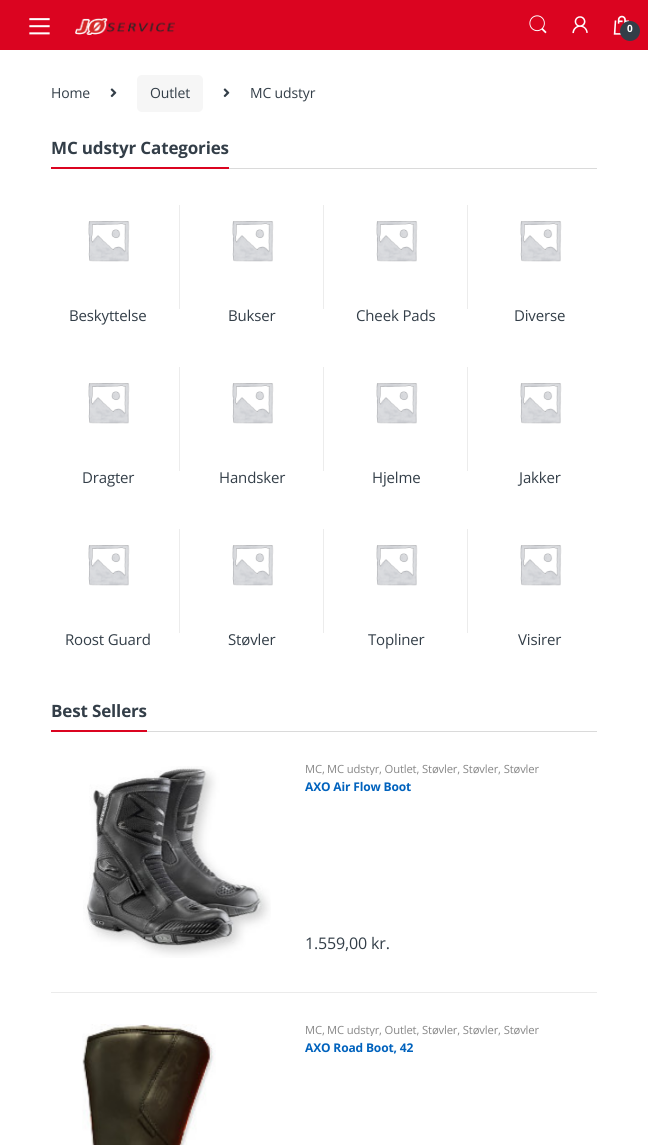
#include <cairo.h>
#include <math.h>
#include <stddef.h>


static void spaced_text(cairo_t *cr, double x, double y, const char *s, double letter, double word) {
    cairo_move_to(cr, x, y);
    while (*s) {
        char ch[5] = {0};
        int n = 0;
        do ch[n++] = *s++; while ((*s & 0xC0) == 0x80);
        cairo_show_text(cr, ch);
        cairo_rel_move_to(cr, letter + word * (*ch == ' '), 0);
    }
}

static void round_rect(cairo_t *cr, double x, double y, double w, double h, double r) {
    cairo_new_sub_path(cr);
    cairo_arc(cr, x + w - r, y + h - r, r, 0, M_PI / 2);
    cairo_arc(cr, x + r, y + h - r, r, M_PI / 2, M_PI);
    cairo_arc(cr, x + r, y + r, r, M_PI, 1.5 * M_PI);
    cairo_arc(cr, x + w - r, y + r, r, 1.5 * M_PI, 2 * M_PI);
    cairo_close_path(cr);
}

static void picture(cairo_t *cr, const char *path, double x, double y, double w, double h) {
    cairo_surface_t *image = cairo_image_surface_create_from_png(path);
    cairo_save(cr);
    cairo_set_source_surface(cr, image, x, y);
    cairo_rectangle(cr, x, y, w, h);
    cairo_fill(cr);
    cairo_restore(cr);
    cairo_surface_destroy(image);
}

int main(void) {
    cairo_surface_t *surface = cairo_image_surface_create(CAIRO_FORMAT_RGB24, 648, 1145);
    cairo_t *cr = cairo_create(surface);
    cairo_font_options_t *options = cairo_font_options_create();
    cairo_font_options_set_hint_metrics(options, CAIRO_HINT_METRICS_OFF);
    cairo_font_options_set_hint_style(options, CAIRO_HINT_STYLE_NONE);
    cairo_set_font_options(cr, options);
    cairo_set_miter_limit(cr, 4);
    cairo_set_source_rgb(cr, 1, 1, 1);
    cairo_paint(cr);
    cairo_set_source_rgb(cr, 0.859, 0.016, 0.125);
    cairo_rectangle(cr, 0, 0, 648, 50);
    cairo_fill(cr);
    picture(cr, "img1.png", 29, 18, 21, 17);
    picture(cr, "img2.png", 75, 18, 100, 17);
    picture(cr, "img3.png", 529, 15, 18, 19);
    picture(cr, "img4.png", 572, 16, 16, 18);
    picture(cr, "img5.png", 613, 15, 16, 20);
    cairo_set_source_rgb(cr, 0.2, 0.243, 0.282);
    cairo_arc(cr, 630, 31, 10, 0, 2 * M_PI);
    cairo_fill(cr);
    cairo_select_font_face(cr, "Open Sans", CAIRO_FONT_SLANT_NORMAL, CAIRO_FONT_WEIGHT_BOLD);
    cairo_set_font_size(cr, 10);
    cairo_set_source_rgb(cr, 1, 1, 1);
    spaced_text(cr, 627, 32, "0", -0.15, 0);
    cairo_select_font_face(cr, "Open Sans", CAIRO_FONT_SLANT_NORMAL, CAIRO_FONT_WEIGHT_NORMAL);
    cairo_set_font_size(cr, 14);
    cairo_set_source_rgb(cr, 0.2, 0.243, 0.282);
    spaced_text(cr, 51, 98, "Home", -0.15, 0);
    picture(cr, "img6.png", 110, 88, 7, 10);
    cairo_set_source_rgb(cr, 0.961, 0.961, 0.961);
    round_rect(cr, 137, 75, 66, 37, 5);
    cairo_fill(cr);
    cairo_set_source_rgb(cr, 0.2, 0.243, 0.282);
    spaced_text(cr, 150, 98, "Outlet", -0.15, 0);
    picture(cr, "img6.png", 223, 88, 7, 10);
    spaced_text(cr, 250, 98, "MC udstyr", -0.15, 0);
    cairo_set_source_rgb(cr, 0.855, 0.855, 0.855);
    cairo_rectangle(cr, 229, 168, 368, 1);
    cairo_fill(cr);
    cairo_select_font_face(cr, "Open Sans", CAIRO_FONT_SLANT_NORMAL, CAIRO_FONT_WEIGHT_BOLD);
    cairo_set_font_size(cr, 17);
    cairo_set_source_rgb(cr, 0.2, 0.243, 0.282);
    spaced_text(cr, 51, 154, "MC udstyr Categories", -0.15, 0);
    cairo_set_source_rgb(cr, 0.859, 0.016, 0.125);
    cairo_rectangle(cr, 51, 167, 178, 2);
    cairo_fill(cr);
    cairo_set_source_rgb(cr, 0.922, 0.922, 0.922);
    cairo_rectangle(cr, 179, 205, 1, 104);
    cairo_fill(cr);
    picture(cr, "img7.png", 88, 221, 42, 41);
    cairo_select_font_face(cr, "Open Sans", CAIRO_FONT_SLANT_NORMAL, CAIRO_FONT_WEIGHT_NORMAL);
    cairo_set_font_size(cr, 15);
    cairo_set_source_rgb(cr, 0.2, 0.243, 0.282);
    spaced_text(cr, 69, 321, "Beskyttelse", -0.15, 0);
    cairo_set_source_rgb(cr, 0.922, 0.922, 0.922);
    cairo_rectangle(cr, 323, 205, 1, 104);
    cairo_fill(cr);
    picture(cr, "img8.png", 232, 221, 42, 41);
    cairo_set_source_rgb(cr, 0.2, 0.243, 0.282);
    spaced_text(cr, 228, 321, "Bukser", -0.15, 0);
    cairo_set_source_rgb(cr, 0.922, 0.922, 0.922);
    cairo_rectangle(cr, 467, 205, 1, 104);
    cairo_fill(cr);
    picture(cr, "img8.png", 376, 221, 42, 41);
    cairo_set_source_rgb(cr, 0.2, 0.243, 0.282);
    spaced_text(cr, 356, 321, "Cheek Pads", -0.15, 0);
    picture(cr, "img8.png", 520, 221, 42, 41);
    spaced_text(cr, 514, 321, "Diverse", -0.15, 0);
    cairo_set_source_rgb(cr, 0.922, 0.922, 0.922);
    cairo_rectangle(cr, 179, 367, 1, 104);
    cairo_fill(cr);
    picture(cr, "img7.png", 88, 383, 42, 41);
    cairo_set_source_rgb(cr, 0.2, 0.243, 0.282);
    spaced_text(cr, 82, 483, "Dragter", -0.15, 0);
    cairo_set_source_rgb(cr, 0.922, 0.922, 0.922);
    cairo_rectangle(cr, 323, 367, 1, 104);
    cairo_fill(cr);
    picture(cr, "img8.png", 232, 383, 42, 41);
    cairo_set_source_rgb(cr, 0.2, 0.243, 0.282);
    spaced_text(cr, 219, 483, "Handsker", -0.15, 0);
    cairo_set_source_rgb(cr, 0.922, 0.922, 0.922);
    cairo_rectangle(cr, 467, 367, 1, 104);
    cairo_fill(cr);
    picture(cr, "img8.png", 376, 383, 42, 41);
    cairo_set_source_rgb(cr, 0.2, 0.243, 0.282);
    spaced_text(cr, 372, 483, "Hjelme", -0.15, 0);
    picture(cr, "img8.png", 520, 383, 42, 41);
    spaced_text(cr, 519, 483, "Jakker", -0.15, 0);
    cairo_set_source_rgb(cr, 0.922, 0.922, 0.922);
    cairo_rectangle(cr, 179, 529, 1, 104);
    cairo_fill(cr);
    picture(cr, "img7.png", 88, 545, 42, 41);
    cairo_set_source_rgb(cr, 0.2, 0.243, 0.282);
    spaced_text(cr, 65, 645, "Roost Guard", -0.15, 0);
    cairo_set_source_rgb(cr, 0.922, 0.922, 0.922);
    cairo_rectangle(cr, 323, 529, 1, 104);
    cairo_fill(cr);
    picture(cr, "img8.png", 232, 545, 42, 41);
    cairo_set_source_rgb(cr, 0.2, 0.243, 0.282);
    spaced_text(cr, 228, 645, "Støvler", -0.15, 0);
    cairo_set_source_rgb(cr, 0.922, 0.922, 0.922);
    cairo_rectangle(cr, 467, 529, 1, 104);
    cairo_fill(cr);
    picture(cr, "img8.png", 376, 545, 42, 41);
    cairo_set_source_rgb(cr, 0.2, 0.243, 0.282);
    spaced_text(cr, 368, 645, "Topliner", -0.15, 0);
    picture(cr, "img8.png", 520, 545, 42, 41);
    spaced_text(cr, 518, 645, "Visirer", -0.15, 0);
    cairo_set_source_rgb(cr, 0.855, 0.855, 0.855);
    cairo_rectangle(cr, 147, 731, 450, 1);
    cairo_fill(cr);
    cairo_select_font_face(cr, "Open Sans", CAIRO_FONT_SLANT_NORMAL, CAIRO_FONT_WEIGHT_BOLD);
    cairo_set_font_size(cr, 17);
    cairo_set_source_rgb(cr, 0.2, 0.243, 0.282);
    spaced_text(cr, 51, 717, "Best Sellers", -0.15, 0);
    cairo_set_source_rgb(cr, 0.859, 0.016, 0.125);
    cairo_rectangle(cr, 51, 730, 96, 2);
    cairo_fill(cr);
    cairo_set_source_rgb(cr, 0.918, 0.918, 0.918);
    cairo_rectangle(cr, 51, 992, 546, 1);
    cairo_fill(cr);
    picture(cr, "img9.png", 83, 766, 188, 192);
    cairo_select_font_face(cr, "Open Sans", CAIRO_FONT_SLANT_NORMAL, CAIRO_FONT_WEIGHT_NORMAL);
    cairo_set_font_size(cr, 11.25);
    cairo_set_source_rgb(cr, 0.529, 0.529, 0.529);
    spaced_text(cr, 305, 773, "MC,", -0.15, 0);
    cairo_save(cr);
    cairo_rectangle(cr, 305, 763, 261, 12);
    cairo_clip(cr);
    spaced_text(cr, 327, 773, "MC udstyr", -0.15, 0);
    cairo_restore(cr);
    spaced_text(cr, 379, 773, ", Outlet, Støvler, Støvler, Støvler", -0.15, 0);
    cairo_select_font_face(cr, "Open Sans", CAIRO_FONT_SLANT_NORMAL, CAIRO_FONT_WEIGHT_BOLD);
    cairo_set_font_size(cr, 12);
    cairo_set_source_rgb(cr, 0, 0.384, 0.741);
    spaced_text(cr, 305, 791, "AXO Air Flow Boot", -0.15, 0);
    cairo_select_font_face(cr, "Open Sans", CAIRO_FONT_SLANT_NORMAL, CAIRO_FONT_WEIGHT_NORMAL);
    cairo_set_font_size(cr, 16);
    cairo_set_source_rgb(cr, 0.2, 0.243, 0.282);
    spaced_text(cr, 305, 949, "1.559,00 kr.", -0.15, 0);
    picture(cr, "img10.png", 82, 1024, 134, 121);
    cairo_set_font_size(cr, 11.25);
    cairo_set_source_rgb(cr, 0.529, 0.529, 0.529);
    spaced_text(cr, 305, 1034, "MC,", -0.15, 0);
    cairo_save(cr);
    cairo_rectangle(cr, 305, 1024, 261, 12);
    cairo_clip(cr);
    spaced_text(cr, 327, 1034, "MC udstyr", -0.15, 0);
    cairo_restore(cr);
    spaced_text(cr, 379, 1034, ", Outlet, Støvler, Støvler, Støvler", -0.15, 0);
    cairo_select_font_face(cr, "Open Sans", CAIRO_FONT_SLANT_NORMAL, CAIRO_FONT_WEIGHT_BOLD);
    cairo_set_font_size(cr, 12);
    cairo_set_source_rgb(cr, 0, 0.384, 0.741);
    spaced_text(cr, 305, 1052, "AXO Road Boot, 42", -0.15, 0);
    cairo_surface_write_to_png(surface, "page.png");
    cairo_font_options_destroy(options);
    cairo_destroy(cr);
    cairo_surface_destroy(surface);
    return 0;
}
